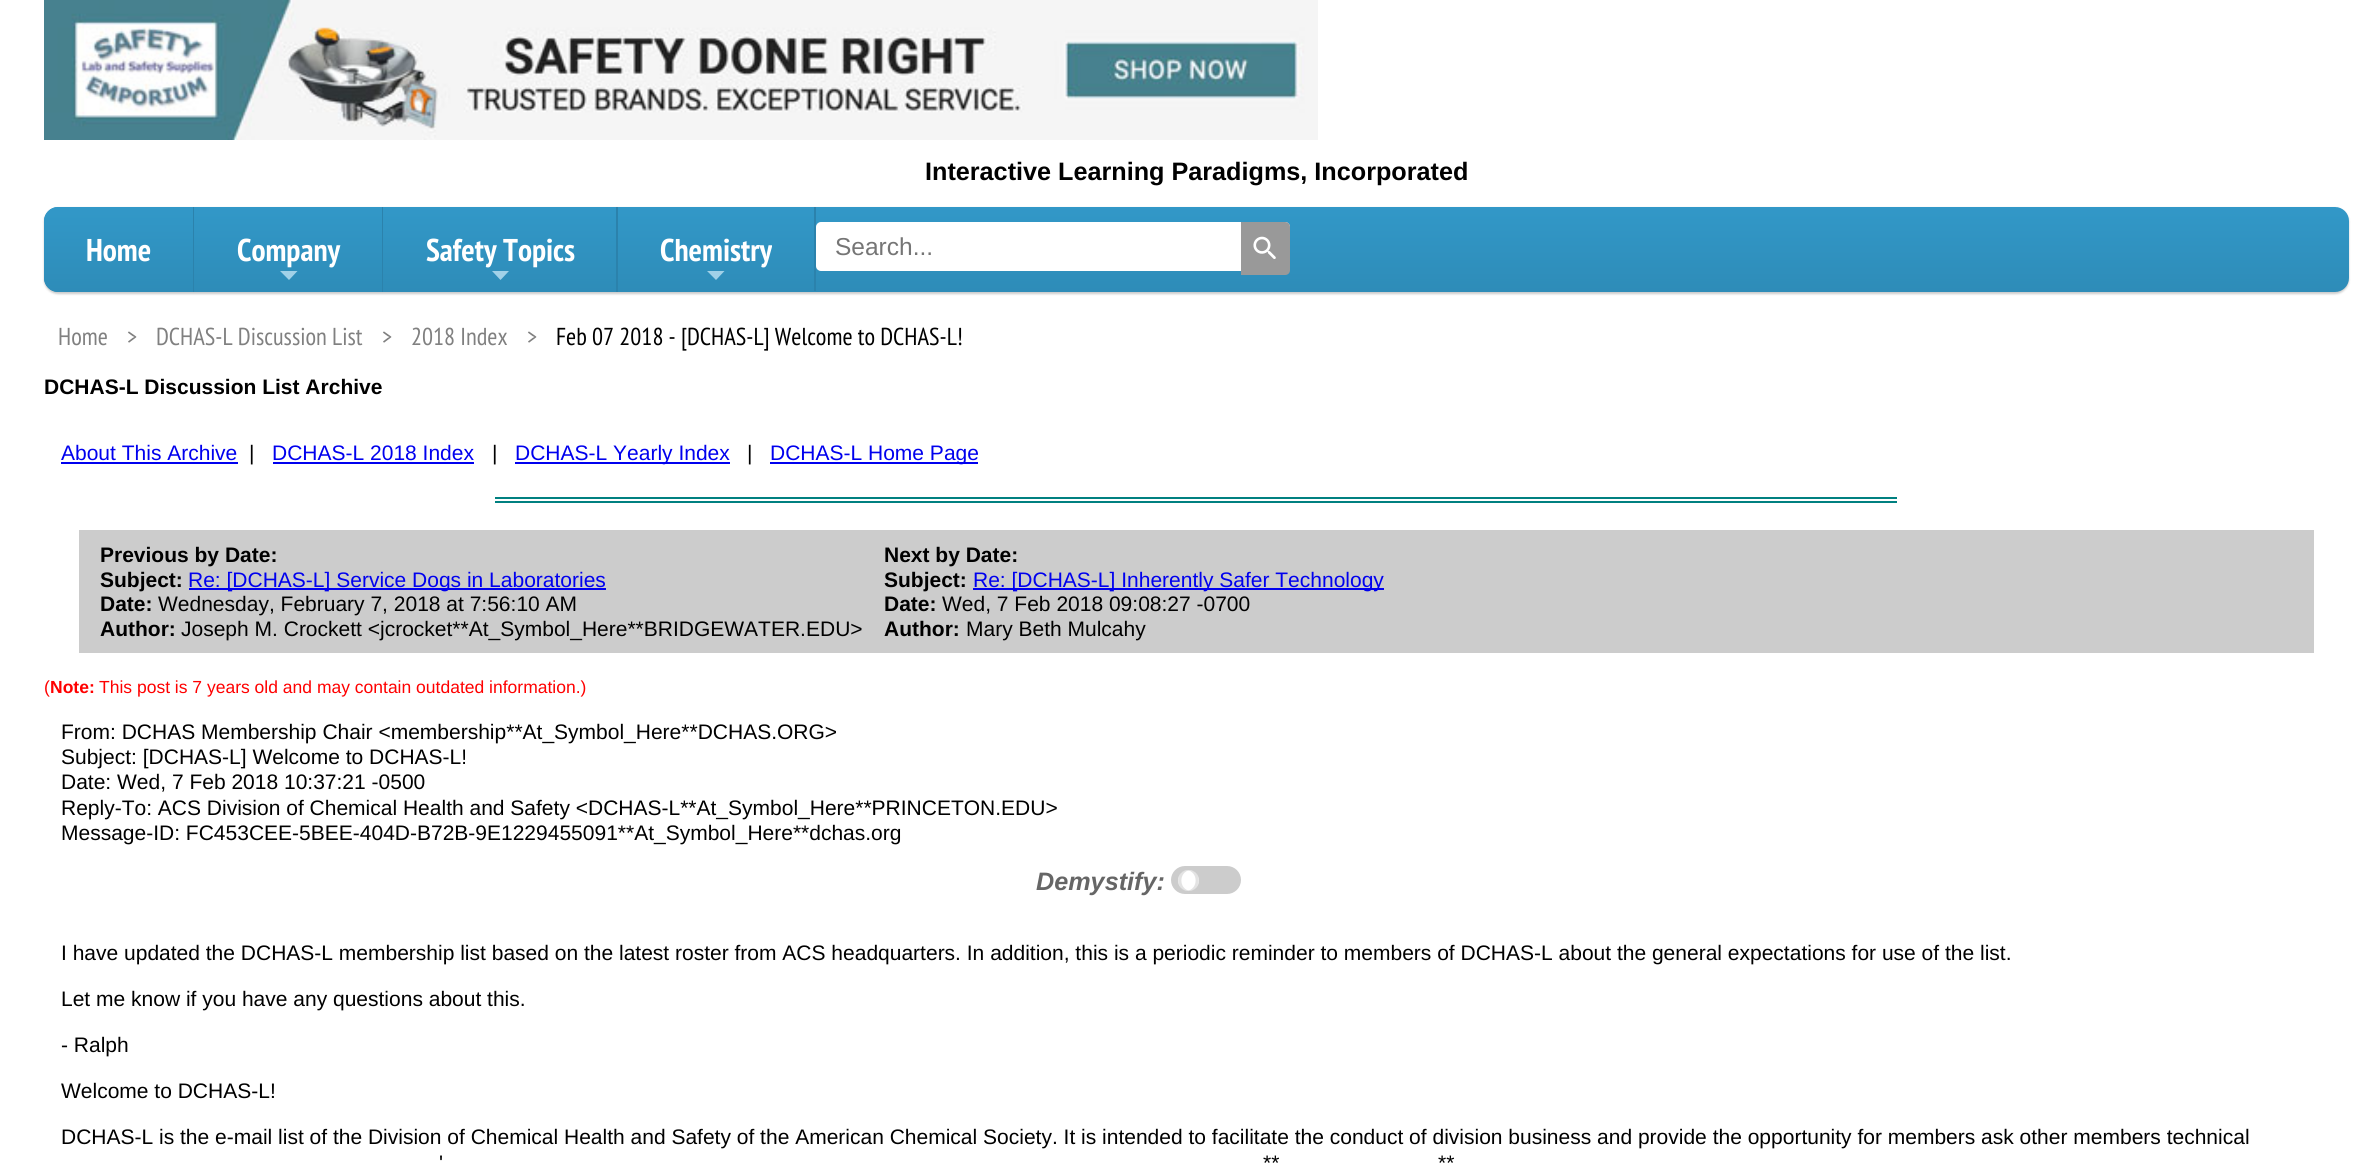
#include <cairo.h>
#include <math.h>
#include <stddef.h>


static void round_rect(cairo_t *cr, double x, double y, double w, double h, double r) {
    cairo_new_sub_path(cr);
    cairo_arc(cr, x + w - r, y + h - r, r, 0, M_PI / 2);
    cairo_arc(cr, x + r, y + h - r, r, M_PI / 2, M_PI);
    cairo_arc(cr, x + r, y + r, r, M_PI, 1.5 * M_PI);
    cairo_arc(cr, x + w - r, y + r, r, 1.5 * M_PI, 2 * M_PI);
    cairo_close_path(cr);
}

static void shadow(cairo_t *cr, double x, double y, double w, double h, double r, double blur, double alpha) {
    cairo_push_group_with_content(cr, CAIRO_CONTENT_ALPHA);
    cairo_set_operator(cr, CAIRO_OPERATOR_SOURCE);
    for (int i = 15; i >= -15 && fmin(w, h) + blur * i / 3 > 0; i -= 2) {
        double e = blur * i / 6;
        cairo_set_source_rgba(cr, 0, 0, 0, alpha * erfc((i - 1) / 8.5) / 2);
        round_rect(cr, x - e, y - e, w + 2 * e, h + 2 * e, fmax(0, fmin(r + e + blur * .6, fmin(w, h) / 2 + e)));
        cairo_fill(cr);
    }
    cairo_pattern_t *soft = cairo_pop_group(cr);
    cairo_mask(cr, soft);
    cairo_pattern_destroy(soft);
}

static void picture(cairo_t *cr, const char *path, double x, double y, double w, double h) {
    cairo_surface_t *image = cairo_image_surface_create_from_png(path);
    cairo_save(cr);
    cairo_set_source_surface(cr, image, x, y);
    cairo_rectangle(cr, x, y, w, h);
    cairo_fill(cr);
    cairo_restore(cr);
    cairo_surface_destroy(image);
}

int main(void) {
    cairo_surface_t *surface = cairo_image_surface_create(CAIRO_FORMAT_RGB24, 2362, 1164);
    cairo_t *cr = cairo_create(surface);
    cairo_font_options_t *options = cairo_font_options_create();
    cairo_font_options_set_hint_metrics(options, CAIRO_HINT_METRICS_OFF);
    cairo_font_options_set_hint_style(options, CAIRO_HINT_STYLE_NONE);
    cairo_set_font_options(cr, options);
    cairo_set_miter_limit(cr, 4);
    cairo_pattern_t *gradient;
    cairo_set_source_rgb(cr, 1, 1, 1);
    cairo_paint(cr);
    picture(cr, "img1.png", 44, 0, 1274, 140);
    cairo_select_font_face(cr, "Liberation Sans", CAIRO_FONT_SLANT_NORMAL, CAIRO_FONT_WEIGHT_BOLD);
    cairo_set_font_size(cr, 25.2);
    cairo_set_source_rgb(cr, 0, 0, 0);
    cairo_move_to(cr, 925, 180);
    cairo_show_text(cr, "Interactive Learning Paradigms, Incorporated");
    cairo_set_source_rgb(cr, 0, 0, 0);
    shadow(cr, 44, 208, 2305, 86, 14, 1, 0.2);
    gradient = cairo_pattern_create_linear(1196, 206, 1196, 292);
    cairo_pattern_add_color_stop_rgba(gradient, 0, 0.196, 0.596, 0.784, 1);
    cairo_pattern_add_color_stop_rgba(gradient, 1, 0.18, 0.549, 0.722, 1);
    cairo_set_source(cr, gradient);
    cairo_pattern_destroy(gradient);
    round_rect(cr, 44, 207, 2305, 85, 14);
    cairo_fill(cr);
    gradient = cairo_pattern_create_linear(118, 207, 118, 292);
    cairo_pattern_add_color_stop_rgba(gradient, 0, 0.196, 0.596, 0.784, 1);
    cairo_pattern_add_color_stop_rgba(gradient, 1, 0.18, 0.549, 0.722, 1);
    cairo_set_source(cr, gradient);
    cairo_pattern_destroy(gradient);
    cairo_new_path(cr);
    cairo_move_to(cr, 58, 207);
    cairo_line_to(cr, 193, 207);
    cairo_line_to(cr, 193, 292);
    cairo_line_to(cr, 58, 292);
    cairo_curve_to(cr, 50.5, 292, 44, 285.5, 44, 278);
    cairo_line_to(cr, 44, 221);
    cairo_curve_to(cr, 44, 213.5, 50.5, 207, 58, 207);
    cairo_close_path(cr);
    cairo_fill(cr);
    cairo_select_font_face(cr, "PT Sans Narrow", CAIRO_FONT_SLANT_NORMAL, CAIRO_FONT_WEIGHT_BOLD);
    cairo_set_font_size(cr, 31.5);
    cairo_set_source_rgb(cr, 1, 1, 1);
    cairo_move_to(cr, 86, 261);
    cairo_show_text(cr, "Home");
    cairo_set_source_rgb(cr, 0.169, 0.51, 0.675);
    cairo_rectangle(cr, 193, 207, 1, 85);
    cairo_fill(cr);
    cairo_set_source_rgb(cr, 1, 1, 1);
    cairo_move_to(cr, 237, 261);
    cairo_show_text(cr, "Company");
    cairo_set_source_rgb(cr, 0.631, 0.82, 0.91);
    cairo_new_path(cr);
    cairo_move_to(cr, 280, 271);
    cairo_line_to(cr, 297.5, 271);
    cairo_line_to(cr, 289, 280);
    cairo_close_path(cr);
    cairo_fill(cr);
    cairo_set_source_rgb(cr, 0.169, 0.51, 0.675);
    cairo_rectangle(cr, 382, 207, 1, 85);
    cairo_fill(cr);
    cairo_set_source_rgb(cr, 1, 1, 1);
    cairo_move_to(cr, 426, 261);
    cairo_show_text(cr, "Safety Topics");
    cairo_set_source_rgb(cr, 0.631, 0.82, 0.91);
    cairo_new_path(cr);
    cairo_move_to(cr, 492, 271);
    cairo_line_to(cr, 509, 271);
    cairo_line_to(cr, 500.5, 280);
    cairo_close_path(cr);
    cairo_fill(cr);
    cairo_set_source_rgb(cr, 0.169, 0.51, 0.675);
    cairo_rectangle(cr, 616, 207, 2, 85);
    cairo_fill(cr);
    cairo_set_source_rgb(cr, 1, 1, 1);
    cairo_move_to(cr, 660, 261);
    cairo_show_text(cr, "Chemistry");
    cairo_set_source_rgb(cr, 0.631, 0.82, 0.91);
    cairo_new_path(cr);
    cairo_move_to(cr, 707, 271);
    cairo_line_to(cr, 724.5, 271);
    cairo_line_to(cr, 716, 280);
    cairo_close_path(cr);
    cairo_fill(cr);
    cairo_set_source_rgb(cr, 0.169, 0.51, 0.675);
    cairo_rectangle(cr, 814, 207, 2, 84);
    cairo_fill(cr);
    cairo_set_source_rgb(cr, 1, 1, 1);
    round_rect(cr, 817, 223, 472, 47, 4);
    cairo_fill_preserve(cr);
    cairo_stroke(cr);
    cairo_select_font_face(cr, "Liberation Sans", CAIRO_FONT_SLANT_NORMAL, CAIRO_FONT_WEIGHT_NORMAL);
    cairo_set_font_size(cr, 24.5);
    cairo_set_source_rgb(cr, 0.459, 0.459, 0.459);
    cairo_move_to(cr, 835, 255);
    cairo_show_text(cr, "Search...");
    cairo_set_source_rgb(cr, 0.6, 0.6, 0.6);
    cairo_new_path(cr);
    cairo_move_to(cr, 1241, 222);
    cairo_line_to(cr, 1285, 222);
    cairo_curve_to(cr, 1288, 222, 1290, 224, 1290, 227);
    cairo_line_to(cr, 1290, 270);
    cairo_curve_to(cr, 1290, 273, 1288, 275, 1285, 275);
    cairo_line_to(cr, 1241, 275);
    cairo_close_path(cr);
    cairo_fill(cr);
    picture(cr, "img2.png", 1253, 236, 23, 23);
    cairo_select_font_face(cr, "PT Sans Narrow", CAIRO_FONT_SLANT_NORMAL, CAIRO_FONT_WEIGHT_NORMAL);
    cairo_set_source_rgb(cr, 0.502, 0.502, 0.502);
    cairo_move_to(cr, 58, 345);
    cairo_show_text(cr, "Home");
    cairo_move_to(cr, 127, 345);
    cairo_show_text(cr, ">");
    cairo_move_to(cr, 156, 345);
    cairo_show_text(cr, "DCHAS-L Discussion List");
    cairo_move_to(cr, 382, 345);
    cairo_show_text(cr, ">");
    cairo_move_to(cr, 411, 345);
    cairo_show_text(cr, "2018 Index");
    cairo_move_to(cr, 527, 345);
    cairo_show_text(cr, ">");
    cairo_set_source_rgb(cr, 0, 0, 0);
    cairo_move_to(cr, 556, 345);
    cairo_show_text(cr, "Feb 07 2018 - [DCHAS-L] Welcome to DCHAS-L!");
    cairo_select_font_face(cr, "Liberation Sans", CAIRO_FONT_SLANT_NORMAL, CAIRO_FONT_WEIGHT_BOLD);
    cairo_set_font_size(cr, 21);
    cairo_move_to(cr, 44, 394);
    cairo_show_text(cr, "DCHAS-L Discussion List Archive");
    cairo_select_font_face(cr, "Liberation Sans", CAIRO_FONT_SLANT_NORMAL, CAIRO_FONT_WEIGHT_NORMAL);
    cairo_set_source_rgb(cr, 0, 0, 0.933);
    cairo_move_to(cr, 61, 460);
    cairo_show_text(cr, "About This Archive");
    cairo_rectangle(cr, 61, 462, 177, 2);
    cairo_fill(cr);
    cairo_set_source_rgb(cr, 0, 0, 0);
    cairo_move_to(cr, 249, 460);
    cairo_show_text(cr, "|");
    cairo_set_source_rgb(cr, 0, 0, 0.933);
    cairo_move_to(cr, 272, 460);
    cairo_show_text(cr, "DCHAS-L 2018 Index");
    cairo_rectangle(cr, 273, 462, 201, 2);
    cairo_fill(cr);
    cairo_set_source_rgb(cr, 0, 0, 0);
    cairo_move_to(cr, 492, 460);
    cairo_show_text(cr, "|");
    cairo_set_source_rgb(cr, 0, 0, 0.933);
    cairo_rectangle(cr, 515, 462, 215, 2);
    cairo_fill(cr);
    cairo_move_to(cr, 515, 460);
    cairo_show_text(cr, "DCHAS-L Yearly Index");
    cairo_set_source_rgb(cr, 0, 0, 0);
    cairo_move_to(cr, 747, 460);
    cairo_show_text(cr, "|");
    cairo_set_source_rgb(cr, 0, 0, 0.933);
    cairo_rectangle(cr, 770, 462, 208, 2);
    cairo_fill(cr);
    cairo_move_to(cr, 770, 460);
    cairo_show_text(cr, "DCHAS-L Home Page");
    cairo_set_source_rgb(cr, 0, 0.502, 0.502);
    cairo_rectangle(cr, 495, 497, 1402, 2);
    cairo_fill(cr);
    cairo_rectangle(cr, 495, 501, 1402, 2);
    cairo_fill(cr);
    cairo_set_source_rgb(cr, 0.8, 0.8, 0.8);
    cairo_rectangle(cr, 79, 530, 2235, 123);
    cairo_fill(cr);
    cairo_select_font_face(cr, "Liberation Sans", CAIRO_FONT_SLANT_NORMAL, CAIRO_FONT_WEIGHT_BOLD);
    cairo_set_source_rgb(cr, 0, 0, 0);
    cairo_move_to(cr, 100, 562);
    cairo_show_text(cr, "Previous by Date:");
    cairo_move_to(cr, 100, 587);
    cairo_show_text(cr, "Subject:");
    cairo_set_source_rgb(cr, 0, 0, 0.933);
    cairo_rectangle(cr, 189, 588, 417, 2);
    cairo_fill(cr);
    cairo_select_font_face(cr, "Liberation Sans", CAIRO_FONT_SLANT_NORMAL, CAIRO_FONT_WEIGHT_NORMAL);
    cairo_move_to(cr, 188, 587);
    cairo_show_text(cr, "Re: [DCHAS-L] Service Dogs in Laboratories");
    cairo_select_font_face(cr, "Liberation Sans", CAIRO_FONT_SLANT_NORMAL, CAIRO_FONT_WEIGHT_BOLD);
    cairo_set_source_rgb(cr, 0, 0, 0);
    cairo_move_to(cr, 100, 611);
    cairo_show_text(cr, "Date:");
    cairo_select_font_face(cr, "Liberation Sans", CAIRO_FONT_SLANT_NORMAL, CAIRO_FONT_WEIGHT_NORMAL);
    cairo_move_to(cr, 158, 611);
    cairo_show_text(cr, "Wednesday, February 7, 2018 at 7:56:10 AM");
    cairo_select_font_face(cr, "Liberation Sans", CAIRO_FONT_SLANT_NORMAL, CAIRO_FONT_WEIGHT_BOLD);
    cairo_move_to(cr, 100, 636);
    cairo_show_text(cr, "Author:");
    cairo_select_font_face(cr, "Liberation Sans", CAIRO_FONT_SLANT_NORMAL, CAIRO_FONT_WEIGHT_NORMAL);
    cairo_move_to(cr, 181, 636);
    cairo_show_text(cr, "Joseph M. Crockett <jcrocket**At_Symbol_Here**BRIDGEWATER.EDU>");
    cairo_select_font_face(cr, "Liberation Sans", CAIRO_FONT_SLANT_NORMAL, CAIRO_FONT_WEIGHT_BOLD);
    cairo_move_to(cr, 884, 562);
    cairo_show_text(cr, "Next by Date:");
    cairo_move_to(cr, 884, 587);
    cairo_show_text(cr, "Subject:");
    cairo_set_source_rgb(cr, 0, 0, 0.933);
    cairo_rectangle(cr, 973, 588, 411, 2);
    cairo_fill(cr);
    cairo_select_font_face(cr, "Liberation Sans", CAIRO_FONT_SLANT_NORMAL, CAIRO_FONT_WEIGHT_NORMAL);
    cairo_move_to(cr, 973, 587);
    cairo_show_text(cr, "Re: [DCHAS-L] Inherently Safer Technology");
    cairo_select_font_face(cr, "Liberation Sans", CAIRO_FONT_SLANT_NORMAL, CAIRO_FONT_WEIGHT_BOLD);
    cairo_set_source_rgb(cr, 0, 0, 0);
    cairo_move_to(cr, 884, 611);
    cairo_show_text(cr, "Date:");
    cairo_select_font_face(cr, "Liberation Sans", CAIRO_FONT_SLANT_NORMAL, CAIRO_FONT_WEIGHT_NORMAL);
    cairo_move_to(cr, 942, 611);
    cairo_show_text(cr, "Wed, 7 Feb 2018 09:08:27 -0700");
    cairo_select_font_face(cr, "Liberation Sans", CAIRO_FONT_SLANT_NORMAL, CAIRO_FONT_WEIGHT_BOLD);
    cairo_move_to(cr, 884, 636);
    cairo_show_text(cr, "Author:");
    cairo_select_font_face(cr, "Liberation Sans", CAIRO_FONT_SLANT_NORMAL, CAIRO_FONT_WEIGHT_NORMAL);
    cairo_move_to(cr, 966, 636);
    cairo_show_text(cr, "Mary Beth Mulcahy");
    cairo_set_font_size(cr, 17.5);
    cairo_set_source_rgb(cr, 1, 0, 0);
    cairo_move_to(cr, 44, 693);
    cairo_show_text(cr, "(");
    cairo_select_font_face(cr, "Liberation Sans", CAIRO_FONT_SLANT_NORMAL, CAIRO_FONT_WEIGHT_BOLD);
    cairo_move_to(cr, 50, 693);
    cairo_show_text(cr, "Note:");
    cairo_select_font_face(cr, "Liberation Sans", CAIRO_FONT_SLANT_NORMAL, CAIRO_FONT_WEIGHT_NORMAL);
    cairo_move_to(cr, 99, 693);
    cairo_show_text(cr, "This post is 7 years old and may contain outdated information.)");
    cairo_set_font_size(cr, 21);
    cairo_set_source_rgb(cr, 0, 0, 0);
    cairo_move_to(cr, 61, 739);
    cairo_show_text(cr, "From: DCHAS Membership Chair <membership**At_Symbol_Here**DCHAS.ORG>");
    cairo_move_to(cr, 61, 764);
    cairo_show_text(cr, "Subject: [DCHAS-L] Welcome to DCHAS-L!");
    cairo_move_to(cr, 61, 789);
    cairo_show_text(cr, "Date: Wed, 7 Feb 2018 10:37:21 -0500");
    cairo_move_to(cr, 61, 815);
    cairo_show_text(cr, "Reply-To: ACS Division of Chemical Health and Safety <DCHAS-L**At_Symbol_Here**PRINCETON.EDU>");
    cairo_move_to(cr, 61, 840);
    cairo_show_text(cr, "Message-ID: FC453CEE-5BEE-404D-B72B-9E1229455091**At_Symbol_Here**dchas.org");
    cairo_select_font_face(cr, "Liberation Sans", CAIRO_FONT_SLANT_ITALIC, CAIRO_FONT_WEIGHT_BOLD);
    cairo_set_font_size(cr, 25.2);
    cairo_set_source_rgb(cr, 0.4, 0.4, 0.4);
    cairo_move_to(cr, 1036, 890);
    cairo_show_text(cr, "Demystify:");
    cairo_set_source_rgb(cr, 0.8, 0.8, 0.8);
    round_rect(cr, 1171, 866, 70, 28, 14);
    cairo_fill(cr);
    cairo_set_source_rgb(cr, 1, 1, 1);
    cairo_arc(cr, 1188.5, 880.5, 10.5, 0, 2 * M_PI);
    cairo_fill(cr);
    cairo_set_source_rgba(cr, 0.784, 0.784, 0.784, 0.5);
    cairo_new_path(cr);
    cairo_move_to(cr, 1188.5, 870);
    cairo_curve_to(cr, 1173.5, 870, 1175.5, 893, 1190, 891);
    cairo_curve_to(cr, 1178.5, 889, 1178.5, 872, 1190, 870);
    cairo_close_path(cr);
    cairo_fill(cr);
    cairo_new_path(cr);
    cairo_move_to(cr, 1188.5, 870);
    cairo_line_to(cr, 1187, 870);
    cairo_curve_to(cr, 1198.5, 872, 1198.5, 889, 1187, 891);
    cairo_curve_to(cr, 1201.5, 893, 1203.5, 870, 1188.5, 870);
    cairo_close_path(cr);
    cairo_fill(cr);
    cairo_select_font_face(cr, "Liberation Sans", CAIRO_FONT_SLANT_NORMAL, CAIRO_FONT_WEIGHT_NORMAL);
    cairo_set_font_size(cr, 21);
    cairo_set_source_rgb(cr, 0, 0, 0);
    cairo_move_to(cr, 61, 960);
    cairo_show_text(cr, "I have updated the DCHAS-L membership list based on the latest roster from ACS headquarters. In addition, this is a periodic reminder to members of DCHAS-L about the general expectations for use of the list.");
    cairo_move_to(cr, 61, 1006);
    cairo_show_text(cr, "Let me know if you have any questions about this.");
    cairo_move_to(cr, 61, 1052);
    cairo_show_text(cr, "- Ralph");
    cairo_move_to(cr, 61, 1098);
    cairo_show_text(cr, "Welcome to DCHAS-L!");
    cairo_move_to(cr, 61, 1144);
    cairo_show_text(cr, "DCHAS-L is the e-mail list of the Division of Chemical Health and Safety of the American Chemical Society. It is intended to facilitate the conduct of division business and provide the opportunity for members ask other members technical");
    cairo_move_to(cr, 439, 1170);
    cairo_show_text(cr, "'");
    cairo_move_to(cr, 1263, 1170);
    cairo_show_text(cr, "**");
    cairo_move_to(cr, 1438, 1170);
    cairo_show_text(cr, "**");
    cairo_surface_write_to_png(surface, "page.png");
    cairo_font_options_destroy(options);
    cairo_destroy(cr);
    cairo_surface_destroy(surface);
    return 0;
}
